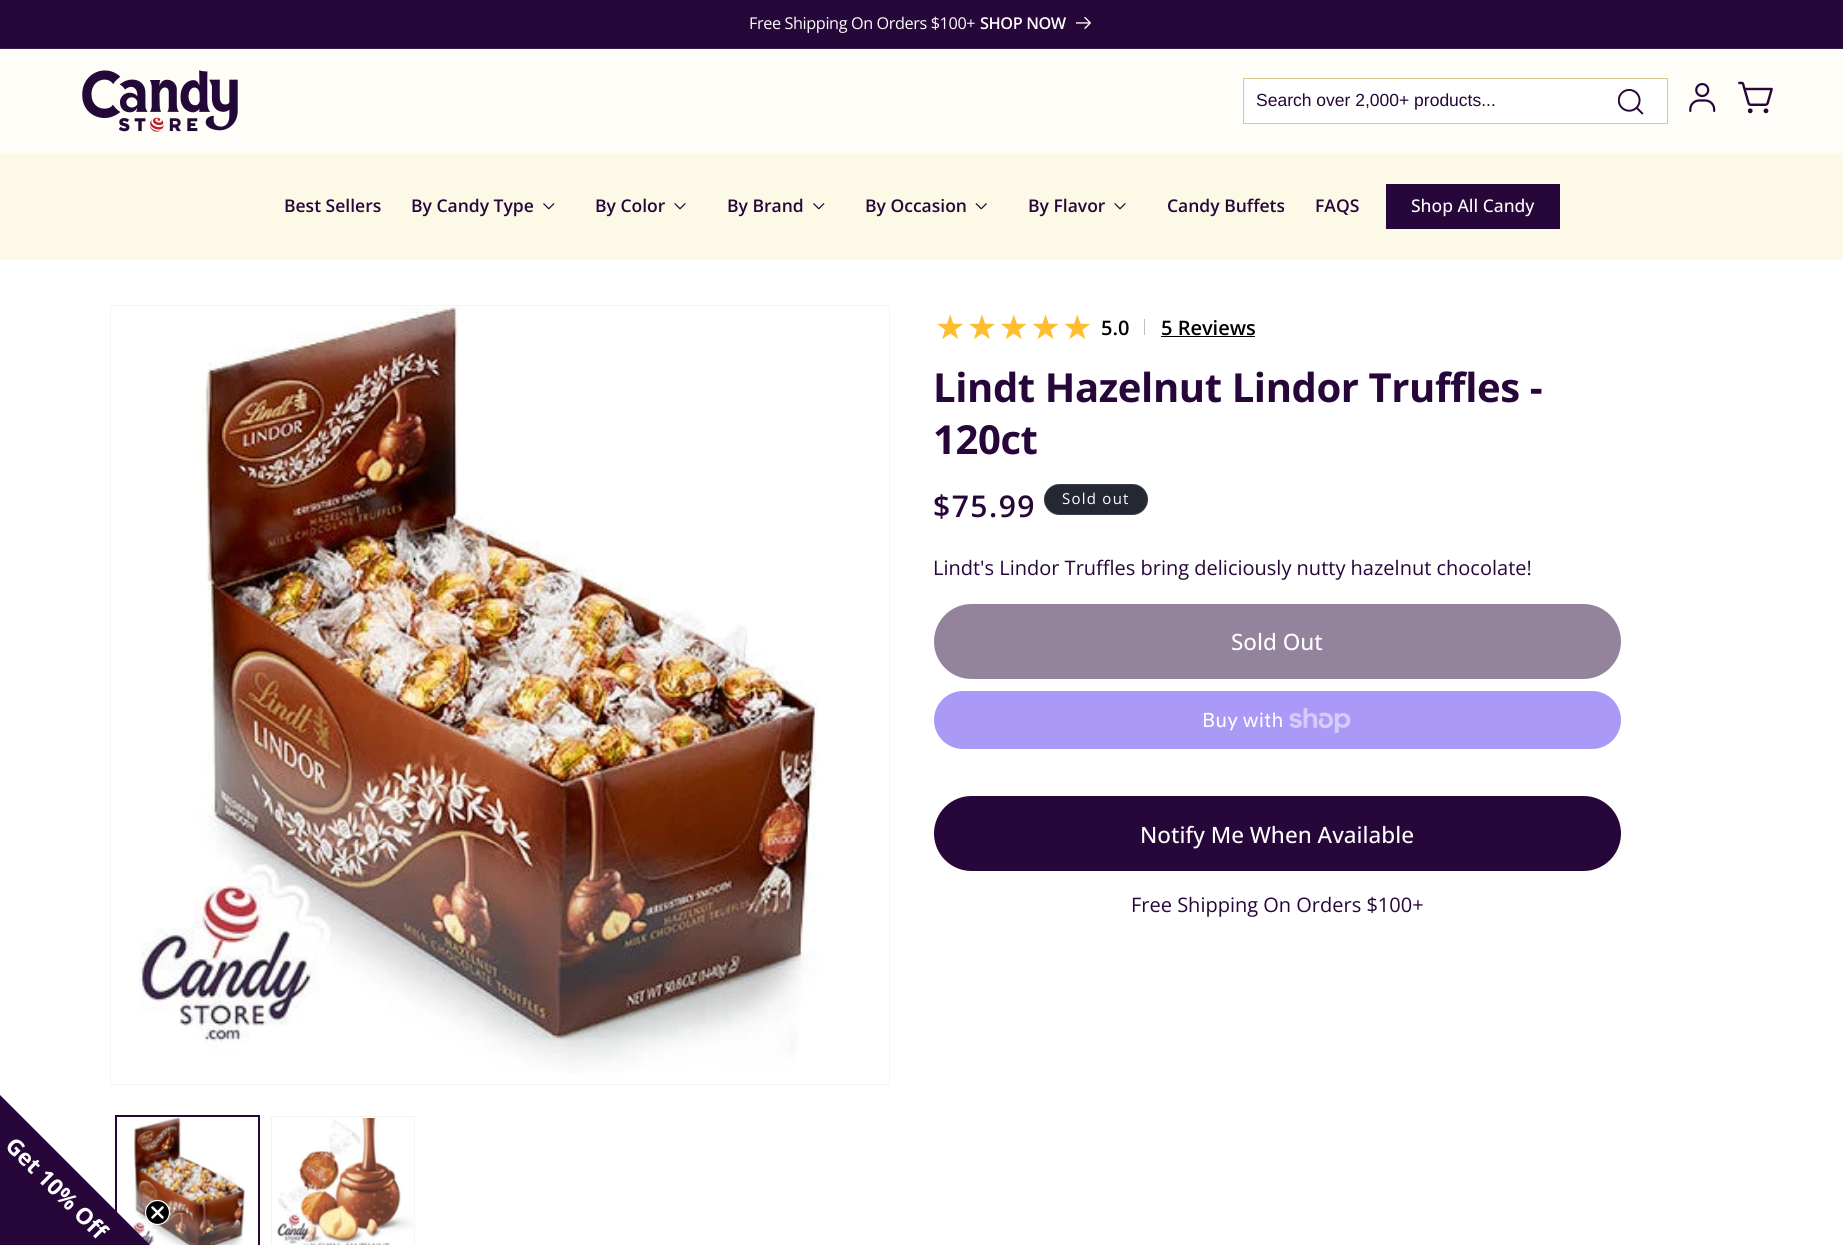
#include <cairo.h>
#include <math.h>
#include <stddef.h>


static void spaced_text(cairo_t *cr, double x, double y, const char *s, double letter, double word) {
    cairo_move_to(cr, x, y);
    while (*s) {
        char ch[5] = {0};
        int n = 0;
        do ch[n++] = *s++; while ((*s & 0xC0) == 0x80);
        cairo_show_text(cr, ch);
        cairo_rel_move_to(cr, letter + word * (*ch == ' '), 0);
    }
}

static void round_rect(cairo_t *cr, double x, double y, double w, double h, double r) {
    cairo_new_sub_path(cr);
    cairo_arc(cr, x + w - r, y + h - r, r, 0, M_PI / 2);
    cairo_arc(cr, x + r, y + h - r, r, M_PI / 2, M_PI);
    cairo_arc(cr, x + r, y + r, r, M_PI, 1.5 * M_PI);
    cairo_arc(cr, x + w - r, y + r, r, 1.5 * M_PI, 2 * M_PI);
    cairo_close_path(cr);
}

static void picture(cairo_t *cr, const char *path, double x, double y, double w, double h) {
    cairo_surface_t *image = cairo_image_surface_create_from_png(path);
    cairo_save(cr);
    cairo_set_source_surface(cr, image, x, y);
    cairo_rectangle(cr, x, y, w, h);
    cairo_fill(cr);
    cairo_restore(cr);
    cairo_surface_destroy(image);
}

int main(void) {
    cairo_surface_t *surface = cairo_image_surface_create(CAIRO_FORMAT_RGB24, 1843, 1245);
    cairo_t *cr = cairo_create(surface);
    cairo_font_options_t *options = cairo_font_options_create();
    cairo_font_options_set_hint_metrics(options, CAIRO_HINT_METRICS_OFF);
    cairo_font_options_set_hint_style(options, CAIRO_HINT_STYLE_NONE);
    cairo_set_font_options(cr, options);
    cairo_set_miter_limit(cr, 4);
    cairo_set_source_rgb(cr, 1, 1, 1);
    cairo_paint(cr);
    cairo_set_source_rgb(cr, 0.153, 0.027, 0.224);
    cairo_rectangle(cr, 0, 0, 1843, 48);
    cairo_fill(cr);
    cairo_set_source_rgb(cr, 0.22, 0.106, 0.286);
    cairo_rectangle(cr, 0, 48, 1843, 1);
    cairo_fill(cr);
    cairo_select_font_face(cr, "Open Sans", CAIRO_FONT_SLANT_NORMAL, CAIRO_FONT_WEIGHT_NORMAL);
    cairo_set_font_size(cr, 16.25);
    cairo_set_source_rgb(cr, 1, 1, 1);
    spaced_text(cr, 749, 29, "Free Shipping On Orders $100+", -0.4, 0);
    cairo_select_font_face(cr, "Open Sans SemiBold", CAIRO_FONT_SLANT_NORMAL, CAIRO_FONT_WEIGHT_NORMAL);
    spaced_text(cr, 980, 29, "SHOP NOW", -0.4, 0);
    picture(cr, "img1.png", 1076, 17, 15, 12);
    cairo_set_source_rgb(cr, 1, 0.992, 0.969);
    cairo_rectangle(cr, 0, 49, 1843, 104);
    cairo_fill(cr);
    picture(cr, "img2.png", 82, 70, 156, 62);
    cairo_rectangle(cr, 1243.5, 78.5, 424, 45);
    cairo_set_source_rgb(cr, 0.843, 0.792, 0.592);
    cairo_set_line_width(cr, 1);
    cairo_stroke(cr);
    cairo_set_source_rgb(cr, 1, 1, 1);
    cairo_rectangle(cr, 1244, 79, 422, 44);
    cairo_fill(cr);
    cairo_select_font_face(cr, "Liberation Sans", CAIRO_FONT_SLANT_NORMAL, CAIRO_FONT_WEIGHT_NORMAL);
    cairo_set_font_size(cr, 17.5);
    cairo_set_source_rgb(cr, 0.153, 0.027, 0.224);
    cairo_move_to(cr, 1256, 106);
    cairo_show_text(cr, "Search over 2,000+ products...");
    picture(cr, "img3.png", 1618, 89, 26, 26);
    picture(cr, "img4.png", 1689, 83, 27, 29);
    picture(cr, "img5.png", 1738, 81, 35, 33);
    cairo_set_source_rgb(cr, 0.992, 0.973, 0.906);
    cairo_rectangle(cr, 0, 153, 1843, 107);
    cairo_fill(cr);
    cairo_select_font_face(cr, "Open Sans SemiBold", CAIRO_FONT_SLANT_NORMAL, CAIRO_FONT_WEIGHT_NORMAL);
    cairo_set_source_rgb(cr, 0.153, 0.027, 0.224);
    cairo_move_to(cr, 284, 212);
    cairo_show_text(cr, "Best Sellers");
    cairo_move_to(cr, 411, 212);
    cairo_show_text(cr, "By Candy Type");
    picture(cr, "img6.png", 543, 203, 12, 7);
    cairo_move_to(cr, 595, 212);
    cairo_show_text(cr, "By Color");
    picture(cr, "img7.png", 674, 203, 12, 7);
    cairo_move_to(cr, 727, 212);
    cairo_show_text(cr, "By Brand");
    picture(cr, "img6.png", 813, 203, 12, 7);
    cairo_move_to(cr, 865, 212);
    cairo_show_text(cr, "By Occasion");
    picture(cr, "img8.png", 975, 203, 12, 7);
    cairo_move_to(cr, 1028, 212);
    cairo_show_text(cr, "By Flavor");
    picture(cr, "img7.png", 1114, 203, 12, 7);
    cairo_move_to(cr, 1167, 212);
    cairo_show_text(cr, "Candy Buffets");
    cairo_move_to(cr, 1315, 212);
    cairo_show_text(cr, "FAQS");
    cairo_rectangle(cr, 1386, 184, 174, 45);
    cairo_fill(cr);
    cairo_select_font_face(cr, "Open Sans Medium", CAIRO_FONT_SLANT_NORMAL, CAIRO_FONT_WEIGHT_NORMAL);
    cairo_set_source_rgb(cr, 1, 1, 1);
    cairo_move_to(cr, 1411, 212);
    cairo_show_text(cr, "Shop All Candy");
    cairo_rectangle(cr, 110.5, 305.5, 779, 779);
    cairo_set_source_rgb(cr, 0.957, 0.953, 0.961);
    cairo_stroke(cr);
    picture(cr, "img9.png", 139, 306, 679, 767);
    cairo_rectangle(cr, 115.5, 1115.5, 144, 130);
    cairo_set_source_rgb(cr, 0.153, 0.027, 0.224);
    cairo_stroke(cr);
    cairo_rectangle(cr, 116.5, 1116.5, 142, 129);
    cairo_stroke(cr);
    picture(cr, "img10.png", 122, 1118, 124, 127);
    cairo_rectangle(cr, 271.5, 1116.5, 143, 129);
    cairo_set_source_rgb(cr, 0.957, 0.953, 0.961);
    cairo_stroke(cr);
    picture(cr, "img11.png", 277, 1118, 136, 127);
    picture(cr, "img12.png", 937, 314, 153, 25);
    cairo_select_font_face(cr, "Open Sans SemiBold", CAIRO_FONT_SLANT_NORMAL, CAIRO_FONT_WEIGHT_NORMAL);
    cairo_set_font_size(cr, 20);
    cairo_set_source_rgb(cr, 0, 0, 0);
    cairo_move_to(cr, 1101, 335);
    cairo_show_text(cr, "5.0");
    cairo_set_source_rgb(cr, 0.749, 0.749, 0.749);
    cairo_rectangle(cr, 1144, 319, 1, 16);
    cairo_fill(cr);
    cairo_set_source_rgb(cr, 0, 0, 0);
    cairo_move_to(cr, 1161, 335);
    cairo_show_text(cr, "5 Reviews");
    cairo_rectangle(cr, 1161, 336, 94, 1);
    cairo_fill(cr);
    cairo_select_font_face(cr, "Open Sans", CAIRO_FONT_SLANT_NORMAL, CAIRO_FONT_WEIGHT_BOLD);
    cairo_set_font_size(cr, 40);
    cairo_set_source_rgb(cr, 0.153, 0.027, 0.224);
    spaced_text(cr, 933, 402, "Lindt Hazelnut Lindor Truffles -", -0.4, 0);
    spaced_text(cr, 933, 454, "120ct", -0.4, 0);
    cairo_select_font_face(cr, "Open Sans SemiBold", CAIRO_FONT_SLANT_NORMAL, CAIRO_FONT_WEIGHT_NORMAL);
    cairo_set_font_size(cr, 30);
    spaced_text(cr, 933, 517, "$75.99", 1.5, 0);
    cairo_set_source_rgb(cr, 0.141, 0.157, 0.2);
    round_rect(cr, 1044, 484, 104, 31, 15.5);
    cairo_fill(cr);
    round_rect(cr, 1044.5, 484.5, 103, 30, 15);
    cairo_set_source_rgba(cr, 1, 1, 1, 0.1);
    cairo_stroke(cr);
    cairo_select_font_face(cr, "Open Sans", CAIRO_FONT_SLANT_NORMAL, CAIRO_FONT_WEIGHT_NORMAL);
    cairo_set_font_size(cr, 15);
    cairo_set_source_rgb(cr, 1, 1, 1);
    spaced_text(cr, 1062, 504, "Sold out", 1.25, 0);
    cairo_set_font_size(cr, 20);
    cairo_set_source_rgb(cr, 0.153, 0.027, 0.224);
    cairo_move_to(cr, 933, 575);
    cairo_show_text(cr, "Lindt's Lindor Truffles bring deliciously nutty hazelnut chocolate!");
    cairo_set_source_rgb(cr, 0.576, 0.514, 0.612);
    round_rect(cr, 934, 604, 687, 75, 37.5);
    cairo_fill(cr);
    cairo_select_font_face(cr, "Open Sans Medium", CAIRO_FONT_SLANT_NORMAL, CAIRO_FONT_WEIGHT_NORMAL);
    cairo_set_font_size(cr, 22.5);
    cairo_set_source_rgb(cr, 1, 1, 1);
    cairo_move_to(cr, 1231, 650);
    cairo_show_text(cr, "Sold Out");
    cairo_set_source_rgb(cr, 0.667, 0.6, 0.961);
    round_rect(cr, 934, 691, 687, 58, 29);
    cairo_fill(cr);
    cairo_select_font_face(cr, "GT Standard", CAIRO_FONT_SLANT_NORMAL, CAIRO_FONT_WEIGHT_NORMAL);
    cairo_set_font_size(cr, 20);
    cairo_set_source_rgb(cr, 1, 1, 1);
    cairo_move_to(cr, 1202, 727);
    cairo_show_text(cr, "Buy with");
    picture(cr, "img13.png", 1289, 708, 62, 25);
    cairo_set_source_rgb(cr, 0.153, 0.027, 0.224);
    round_rect(cr, 934, 796, 687, 75, 37.5);
    cairo_fill(cr);
    cairo_select_font_face(cr, "Open Sans Medium", CAIRO_FONT_SLANT_NORMAL, CAIRO_FONT_WEIGHT_NORMAL);
    cairo_set_font_size(cr, 22.5);
    cairo_set_source_rgb(cr, 1, 1, 1);
    cairo_move_to(cr, 1140, 843);
    cairo_show_text(cr, "Notify Me When Available");
    cairo_select_font_face(cr, "Open Sans", CAIRO_FONT_SLANT_NORMAL, CAIRO_FONT_WEIGHT_NORMAL);
    cairo_set_font_size(cr, 20);
    cairo_set_source_rgb(cr, 0.153, 0.027, 0.224);
    cairo_move_to(cr, 1131, 912);
    cairo_show_text(cr, "Free Shipping On Orders $100+");
    cairo_set_source_rgb(cr, 0.153, 0.024, 0.224);
    cairo_new_path(cr);
    cairo_move_to(cr, 0, 1095);
    cairo_line_to(cr, 0, 1245);
    cairo_line_to(cr, 150, 1245);
    cairo_close_path(cr);
    cairo_fill(cr);
    cairo_select_font_face(cr, "Open Sans", CAIRO_FONT_SLANT_NORMAL, CAIRO_FONT_WEIGHT_BOLD);
    cairo_set_font_size(cr, 22.5);
    cairo_set_source_rgb(cr, 1, 1, 1);
    cairo_save(cr);
    cairo_translate(cr, 4, 1147);
    cairo_rotate(cr, 45 * M_PI / 180);
    cairo_move_to(cr, 0, 0);
    cairo_show_text(cr, "Get 10% Off");
    cairo_restore(cr);
    cairo_set_source_rgb(cr, 0, 0, 0);
    cairo_new_path(cr);
    cairo_arc(cr, 157.5, 1212.5, 12, 0, 2 * M_PI);
    cairo_fill_preserve(cr);
    cairo_set_source_rgb(cr, 1, 1, 1);
    cairo_set_line_width(cr, 1.2);
    cairo_stroke(cr);
    cairo_new_path(cr);
    cairo_move_to(cr, 152.5, 1207.5);
    cairo_line_to(cr, 162.5, 1217.5);
    cairo_move_to(cr, 152.5, 1217.5);
    cairo_line_to(cr, 162.5, 1207.5);
    cairo_close_path(cr);
    cairo_set_line_width(cr, 2.5);
    cairo_set_line_cap(cr, CAIRO_LINE_CAP_ROUND);
    cairo_set_line_join(cr, CAIRO_LINE_JOIN_ROUND);
    cairo_stroke(cr);
    cairo_surface_write_to_png(surface, "page.png");
    cairo_font_options_destroy(options);
    cairo_destroy(cr);
    cairo_surface_destroy(surface);
    return 0;
}
